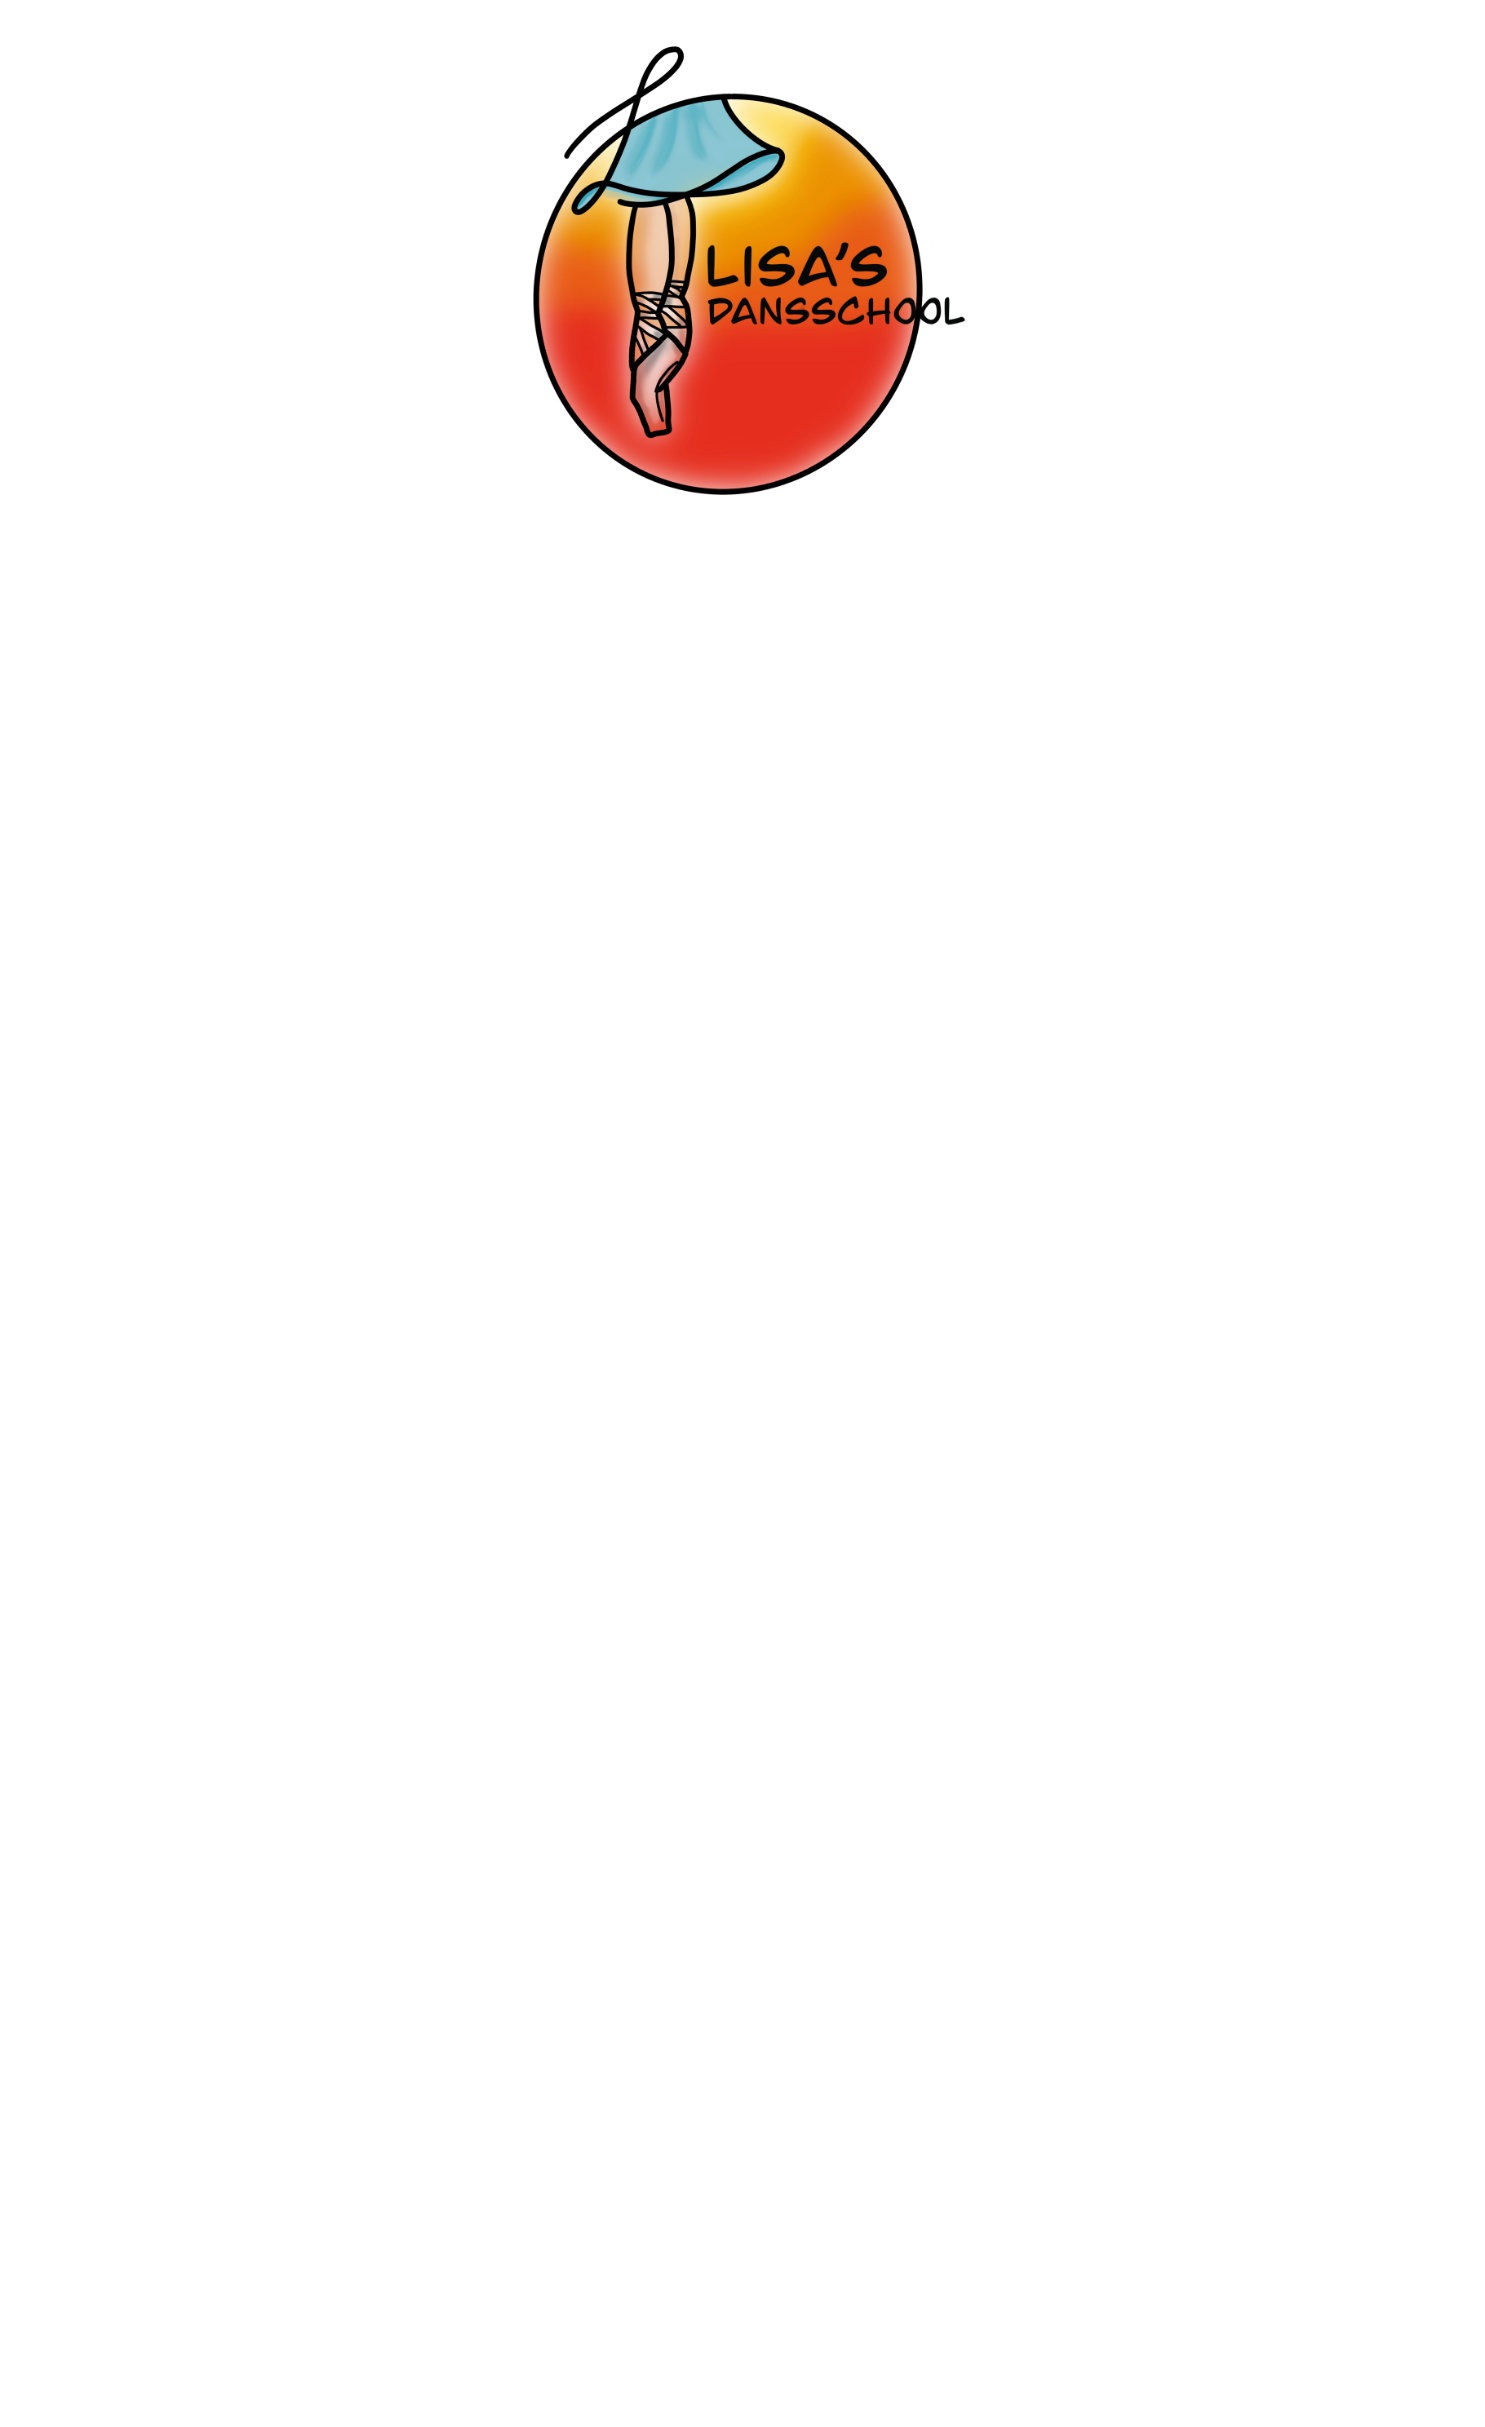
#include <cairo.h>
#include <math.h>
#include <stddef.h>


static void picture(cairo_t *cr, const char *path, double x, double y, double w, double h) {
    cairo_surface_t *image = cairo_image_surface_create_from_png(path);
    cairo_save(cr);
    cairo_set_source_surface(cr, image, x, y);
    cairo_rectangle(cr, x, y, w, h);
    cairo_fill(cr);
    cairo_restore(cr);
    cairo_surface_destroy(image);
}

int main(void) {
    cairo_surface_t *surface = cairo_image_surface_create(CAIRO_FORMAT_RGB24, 1485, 2427);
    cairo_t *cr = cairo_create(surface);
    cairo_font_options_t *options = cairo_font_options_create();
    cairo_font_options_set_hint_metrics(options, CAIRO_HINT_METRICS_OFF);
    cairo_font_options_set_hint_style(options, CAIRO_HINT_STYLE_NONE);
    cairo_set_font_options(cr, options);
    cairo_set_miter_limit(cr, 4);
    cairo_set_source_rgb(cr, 1, 1, 1);
    cairo_paint(cr);
    picture(cr, "img1.png", 533, 46, 433, 449);
    cairo_surface_write_to_png(surface, "page.png");
    cairo_font_options_destroy(options);
    cairo_destroy(cr);
    cairo_surface_destroy(surface);
    return 0;
}
